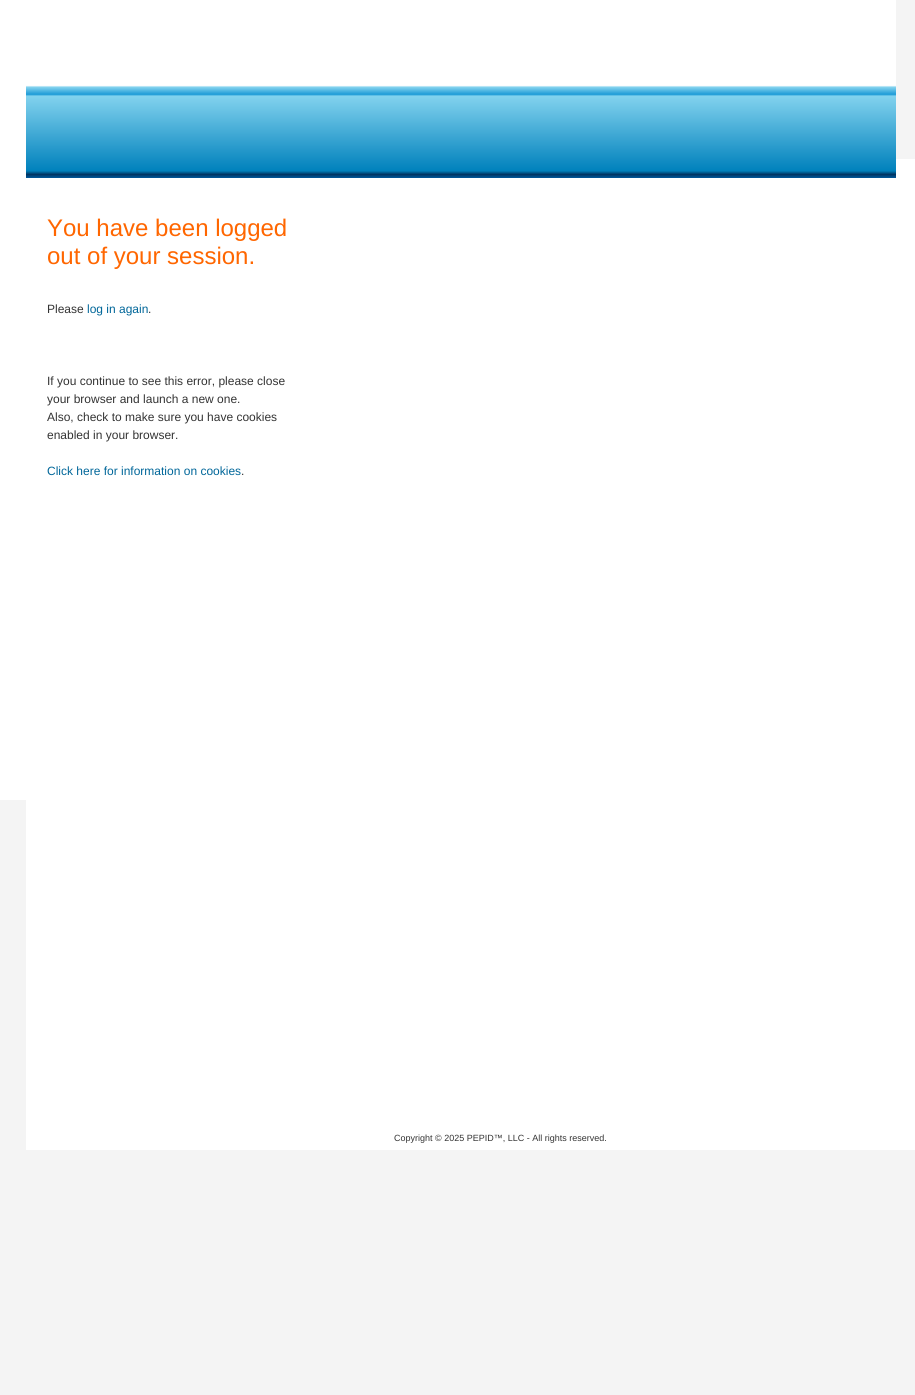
#include <cairo.h>
#include <math.h>
#include <stddef.h>


int main(void) {
    cairo_surface_t *surface = cairo_image_surface_create(CAIRO_FORMAT_RGB24, 915, 1395);
    cairo_t *cr = cairo_create(surface);
    cairo_font_options_t *options = cairo_font_options_create();
    cairo_font_options_set_hint_metrics(options, CAIRO_HINT_METRICS_OFF);
    cairo_font_options_set_hint_style(options, CAIRO_HINT_STYLE_NONE);
    cairo_set_font_options(cr, options);
    cairo_set_miter_limit(cr, 4);
    cairo_pattern_t *gradient;
    cairo_set_source_rgb(cr, 0.957, 0.957, 0.957);
    cairo_paint(cr);
    cairo_set_source_rgb(cr, 1, 1, 1);
    cairo_rectangle(cr, 0, 0, 26, 800);
    cairo_fill(cr);
    cairo_rectangle(cr, 26, 159, 889, 991);
    cairo_fill(cr);
    gradient = cairo_pattern_create_linear(461, 0, 461, 178);
    cairo_pattern_add_color_stop_rgba(gradient, 0, 1, 1, 1, 1);
    cairo_pattern_add_color_stop_rgba(gradient, 0.48, 1, 1, 1, 1);
    cairo_pattern_add_color_stop_rgba(gradient, 0.49, 0.51, 0.824, 0.933, 1);
    cairo_pattern_add_color_stop_rgba(gradient, 0.53, 0.118, 0.608, 0.843, 1);
    cairo_pattern_add_color_stop_rgba(gradient, 0.54, 0.51, 0.824, 0.933, 1);
    cairo_pattern_add_color_stop_rgba(gradient, 0.96, 0, 0.506, 0.737, 1);
    cairo_pattern_add_color_stop_rgba(gradient, 0.98, 0, 0.204, 0.384, 1);
    cairo_pattern_add_color_stop_rgba(gradient, 1, 0, 0.345, 0.608, 1);
    cairo_set_source(cr, gradient);
    cairo_pattern_destroy(gradient);
    cairo_rectangle(cr, 26, 0, 870, 178);
    cairo_fill(cr);
    cairo_select_font_face(cr, "Liberation Sans", CAIRO_FONT_SLANT_NORMAL, CAIRO_FONT_WEIGHT_NORMAL);
    cairo_set_font_size(cr, 24);
    cairo_set_source_rgb(cr, 1, 0.4, 0);
    cairo_move_to(cr, 47, 236);
    cairo_show_text(cr, "You have been logged");
    cairo_move_to(cr, 47, 264);
    cairo_show_text(cr, "out of your session.");
    cairo_set_font_size(cr, 12);
    cairo_set_source_rgb(cr, 0.2, 0.2, 0.2);
    cairo_move_to(cr, 47, 313);
    cairo_show_text(cr, "Please");
    cairo_set_source_rgb(cr, 0, 0.4, 0.6);
    cairo_move_to(cr, 87, 313);
    cairo_show_text(cr, "log in again");
    cairo_set_source_rgb(cr, 0.2, 0.2, 0.2);
    cairo_move_to(cr, 148, 313);
    cairo_show_text(cr, ".");
    cairo_move_to(cr, 47, 385);
    cairo_show_text(cr, "If you continue to see this error, please close");
    cairo_move_to(cr, 47, 403);
    cairo_show_text(cr, "your browser and launch a new one.");
    cairo_move_to(cr, 47, 421);
    cairo_show_text(cr, "Also, check to make sure you have cookies");
    cairo_move_to(cr, 47, 439);
    cairo_show_text(cr, "enabled in your browser.");
    cairo_set_source_rgb(cr, 0, 0.4, 0.6);
    cairo_move_to(cr, 47, 475);
    cairo_show_text(cr, "Click here for information on cookies");
    cairo_set_source_rgb(cr, 0.2, 0.2, 0.2);
    cairo_move_to(cr, 241, 475);
    cairo_show_text(cr, ".");
    cairo_set_font_size(cr, 9);
    cairo_move_to(cr, 394, 1141);
    cairo_show_text(cr, "Copyright © 2025 PEPID™, LLC - All rights reserved.");
    cairo_surface_write_to_png(surface, "page.png");
    cairo_font_options_destroy(options);
    cairo_destroy(cr);
    cairo_surface_destroy(surface);
    return 0;
}
